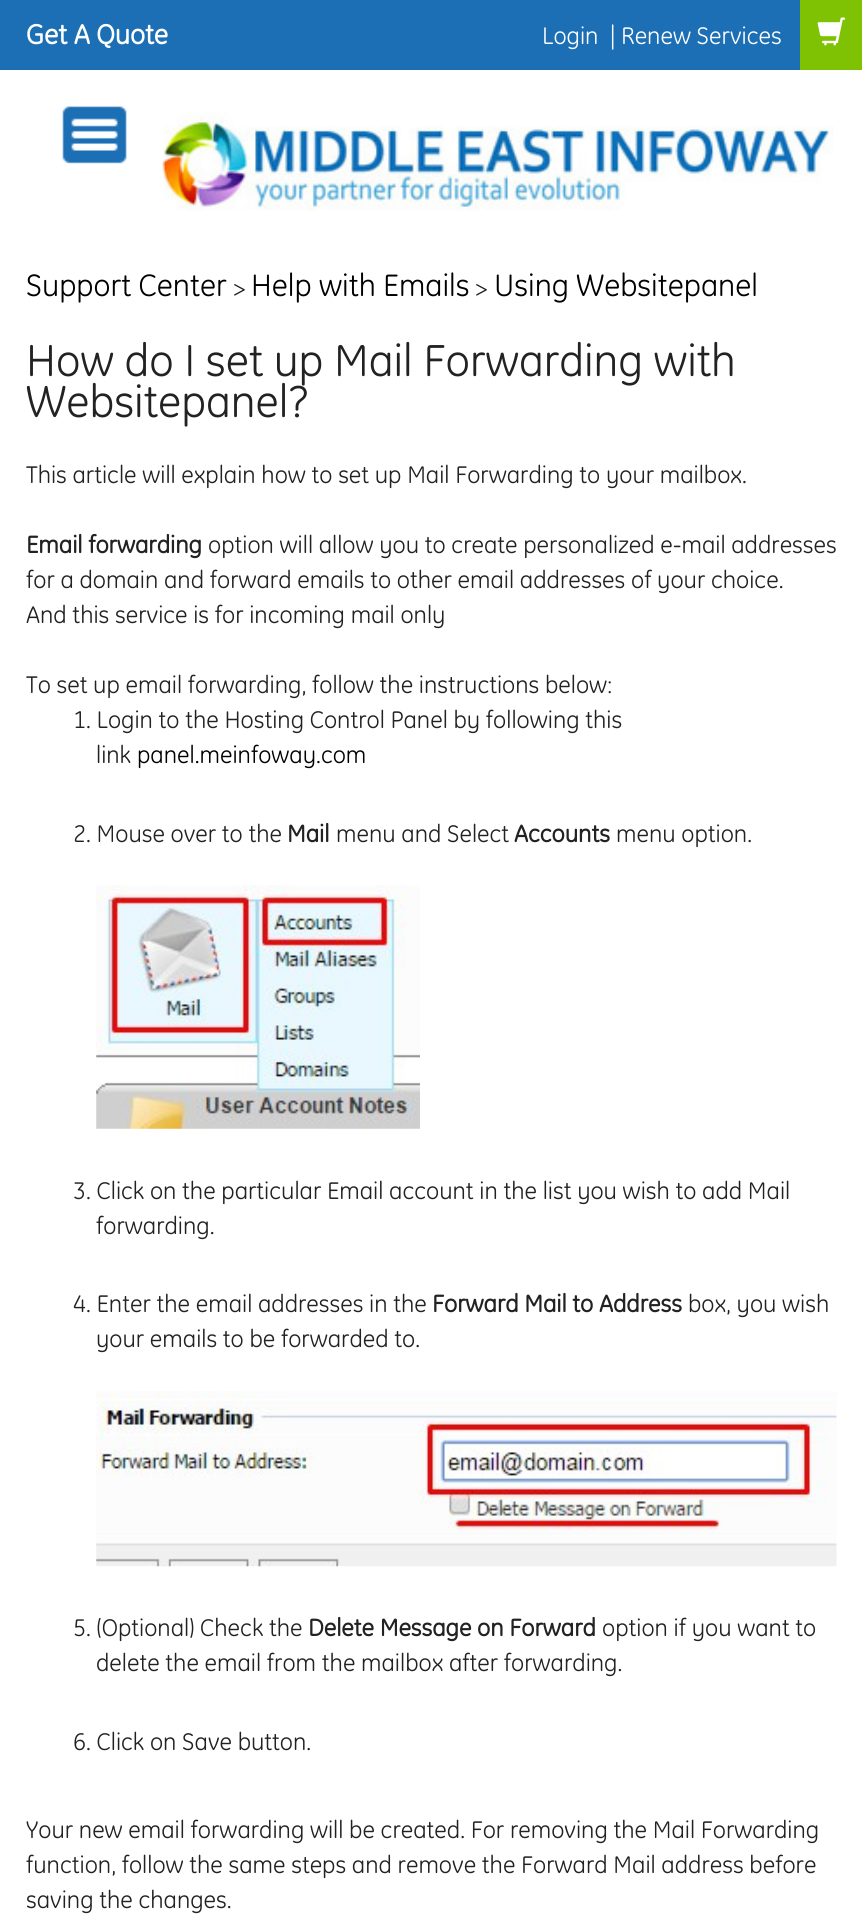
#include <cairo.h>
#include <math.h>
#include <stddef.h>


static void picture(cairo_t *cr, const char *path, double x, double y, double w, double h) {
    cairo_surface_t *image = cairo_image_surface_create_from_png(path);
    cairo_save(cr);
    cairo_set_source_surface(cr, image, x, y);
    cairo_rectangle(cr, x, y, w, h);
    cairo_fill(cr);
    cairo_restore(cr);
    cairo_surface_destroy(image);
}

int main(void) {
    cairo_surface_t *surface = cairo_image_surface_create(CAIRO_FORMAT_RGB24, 862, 1920);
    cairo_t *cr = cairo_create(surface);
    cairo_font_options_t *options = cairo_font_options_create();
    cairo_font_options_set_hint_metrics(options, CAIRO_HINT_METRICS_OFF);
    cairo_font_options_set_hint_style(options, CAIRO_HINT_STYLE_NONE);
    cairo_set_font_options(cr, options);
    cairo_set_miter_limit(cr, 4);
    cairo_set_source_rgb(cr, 1, 1, 1);
    cairo_paint(cr);
    cairo_set_source_rgb(cr, 0.11, 0.435, 0.71);
    cairo_rectangle(cr, 0, 0, 800, 70);
    cairo_fill(cr);
    cairo_select_font_face(cr, "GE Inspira", CAIRO_FONT_SLANT_NORMAL, CAIRO_FONT_WEIGHT_BOLD);
    cairo_set_font_size(cr, 28);
    cairo_set_source_rgb(cr, 1, 1, 1);
    cairo_move_to(cr, 26, 44);
    cairo_show_text(cr, "Get A Quote");
    cairo_select_font_face(cr, "GE Inspira", CAIRO_FONT_SLANT_NORMAL, CAIRO_FONT_WEIGHT_NORMAL);
    cairo_set_font_size(cr, 24.5);
    cairo_move_to(cr, 542, 44);
    cairo_show_text(cr, "Login");
    cairo_move_to(cr, 610, 44);
    cairo_show_text(cr, "| Renew Services");
    cairo_set_source_rgb(cr, 0.498, 0.761, 0.012);
    cairo_rectangle(cr, 800, 0, 62, 70);
    cairo_fill(cr);
    picture(cr, "img1.png", 817, 17, 29, 29);
    picture(cr, "img2.png", 62, 106, 65, 58);
    picture(cr, "img3.png", 162, 112, 672, 99);
    cairo_set_font_size(cr, 31.5);
    cairo_set_source_rgb(cr, 0, 0, 0);
    cairo_move_to(cr, 26, 296);
    cairo_show_text(cr, "Support Center");
    cairo_set_font_size(cr, 24.5);
    cairo_set_source_rgb(cr, 0.133, 0.133, 0.133);
    cairo_move_to(cr, 233, 296);
    cairo_show_text(cr, ">");
    cairo_set_font_size(cr, 31.5);
    cairo_set_source_rgb(cr, 0, 0, 0);
    cairo_move_to(cr, 251, 296);
    cairo_show_text(cr, "Help with Emails");
    cairo_set_font_size(cr, 24.5);
    cairo_set_source_rgb(cr, 0.133, 0.133, 0.133);
    cairo_move_to(cr, 475, 296);
    cairo_show_text(cr, ">");
    cairo_set_font_size(cr, 31.5);
    cairo_set_source_rgb(cr, 0, 0, 0);
    cairo_move_to(cr, 494, 296);
    cairo_show_text(cr, "Using Websitepanel");
    cairo_set_font_size(cr, 45.5);
    cairo_set_source_rgb(cr, 0.133, 0.133, 0.133);
    cairo_move_to(cr, 26, 376);
    cairo_show_text(cr, "How do I set up Mail Forwarding with");
    cairo_move_to(cr, 26, 417);
    cairo_show_text(cr, "Websitepanel?");
    cairo_set_font_size(cr, 24.5);
    cairo_move_to(cr, 26, 483);
    cairo_show_text(cr, "This article will explain how to set up Mail Forwarding to your mailbox.");
    cairo_select_font_face(cr, "GE Inspira", CAIRO_FONT_SLANT_NORMAL, CAIRO_FONT_WEIGHT_BOLD);
    cairo_move_to(cr, 26, 553);
    cairo_show_text(cr, "Email forwarding");
    cairo_select_font_face(cr, "GE Inspira", CAIRO_FONT_SLANT_NORMAL, CAIRO_FONT_WEIGHT_NORMAL);
    cairo_move_to(cr, 208, 553);
    cairo_show_text(cr, "option will allow you to create personalized e-mail addresses");
    cairo_move_to(cr, 26, 588);
    cairo_show_text(cr, "for a domain and forward emails to other email addresses of your choice.");
    cairo_move_to(cr, 26, 623);
    cairo_show_text(cr, "And this service is for incoming mail only");
    cairo_move_to(cr, 26, 693);
    cairo_show_text(cr, "To set up email forwarding, follow the instructions below:");
    cairo_move_to(cr, 73, 728);
    cairo_show_text(cr, "1. Login to the Hosting Control Panel by following this");
    cairo_move_to(cr, 96, 763);
    cairo_show_text(cr, "link");
    cairo_set_source_rgb(cr, 0, 0, 0);
    cairo_move_to(cr, 137, 763);
    cairo_show_text(cr, "panel.meinfoway.com");
    cairo_set_source_rgb(cr, 0.133, 0.133, 0.133);
    cairo_move_to(cr, 73, 842);
    cairo_show_text(cr, "2. Mouse over to the");
    cairo_select_font_face(cr, "GE Inspira", CAIRO_FONT_SLANT_NORMAL, CAIRO_FONT_WEIGHT_BOLD);
    cairo_move_to(cr, 287, 842);
    cairo_show_text(cr, "Mail");
    cairo_select_font_face(cr, "GE Inspira", CAIRO_FONT_SLANT_NORMAL, CAIRO_FONT_WEIGHT_NORMAL);
    cairo_move_to(cr, 336, 842);
    cairo_show_text(cr, "menu and Select");
    cairo_select_font_face(cr, "GE Inspira", CAIRO_FONT_SLANT_NORMAL, CAIRO_FONT_WEIGHT_BOLD);
    cairo_move_to(cr, 514, 842);
    cairo_show_text(cr, "Accounts");
    cairo_select_font_face(cr, "GE Inspira", CAIRO_FONT_SLANT_NORMAL, CAIRO_FONT_WEIGHT_NORMAL);
    cairo_move_to(cr, 616, 842);
    cairo_show_text(cr, "menu option.");
    picture(cr, "img4.png", 96, 885, 324, 244);
    cairo_move_to(cr, 73, 1199);
    cairo_show_text(cr, "3. Click on the particular Email account in the list you wish to add Mail");
    cairo_move_to(cr, 96, 1234);
    cairo_show_text(cr, "forwarding.");
    cairo_move_to(cr, 73, 1312);
    cairo_show_text(cr, "4. Enter the email addresses in the");
    cairo_select_font_face(cr, "GE Inspira", CAIRO_FONT_SLANT_NORMAL, CAIRO_FONT_WEIGHT_BOLD);
    cairo_move_to(cr, 432, 1312);
    cairo_show_text(cr, "Forward Mail to Address");
    cairo_select_font_face(cr, "GE Inspira", CAIRO_FONT_SLANT_NORMAL, CAIRO_FONT_WEIGHT_NORMAL);
    cairo_move_to(cr, 688, 1312);
    cairo_show_text(cr, "box, you wish");
    cairo_move_to(cr, 96, 1347);
    cairo_show_text(cr, "your emails to be forwarded to.");
    picture(cr, "img5.png", 96, 1391, 741, 176);
    cairo_move_to(cr, 73, 1636);
    cairo_show_text(cr, "5. (Optional) Check the");
    cairo_select_font_face(cr, "GE Inspira", CAIRO_FONT_SLANT_NORMAL, CAIRO_FONT_WEIGHT_BOLD);
    cairo_move_to(cr, 308, 1636);
    cairo_show_text(cr, "Delete Message on Forward");
    cairo_select_font_face(cr, "GE Inspira", CAIRO_FONT_SLANT_NORMAL, CAIRO_FONT_WEIGHT_NORMAL);
    cairo_move_to(cr, 602, 1636);
    cairo_show_text(cr, "option if you want to");
    cairo_move_to(cr, 96, 1671);
    cairo_show_text(cr, "delete the email from the mailbox after forwarding.");
    cairo_move_to(cr, 73, 1750);
    cairo_show_text(cr, "6. Click on Save button.");
    cairo_move_to(cr, 26, 1838);
    cairo_show_text(cr, "Your new email forwarding will be created. For removing the Mail Forwarding");
    cairo_move_to(cr, 26, 1873);
    cairo_show_text(cr, "function, follow the same steps and remove the Forward Mail address before");
    cairo_move_to(cr, 26, 1908);
    cairo_show_text(cr, "saving the changes.");
    cairo_surface_write_to_png(surface, "page.png");
    cairo_font_options_destroy(options);
    cairo_destroy(cr);
    cairo_surface_destroy(surface);
    return 0;
}
